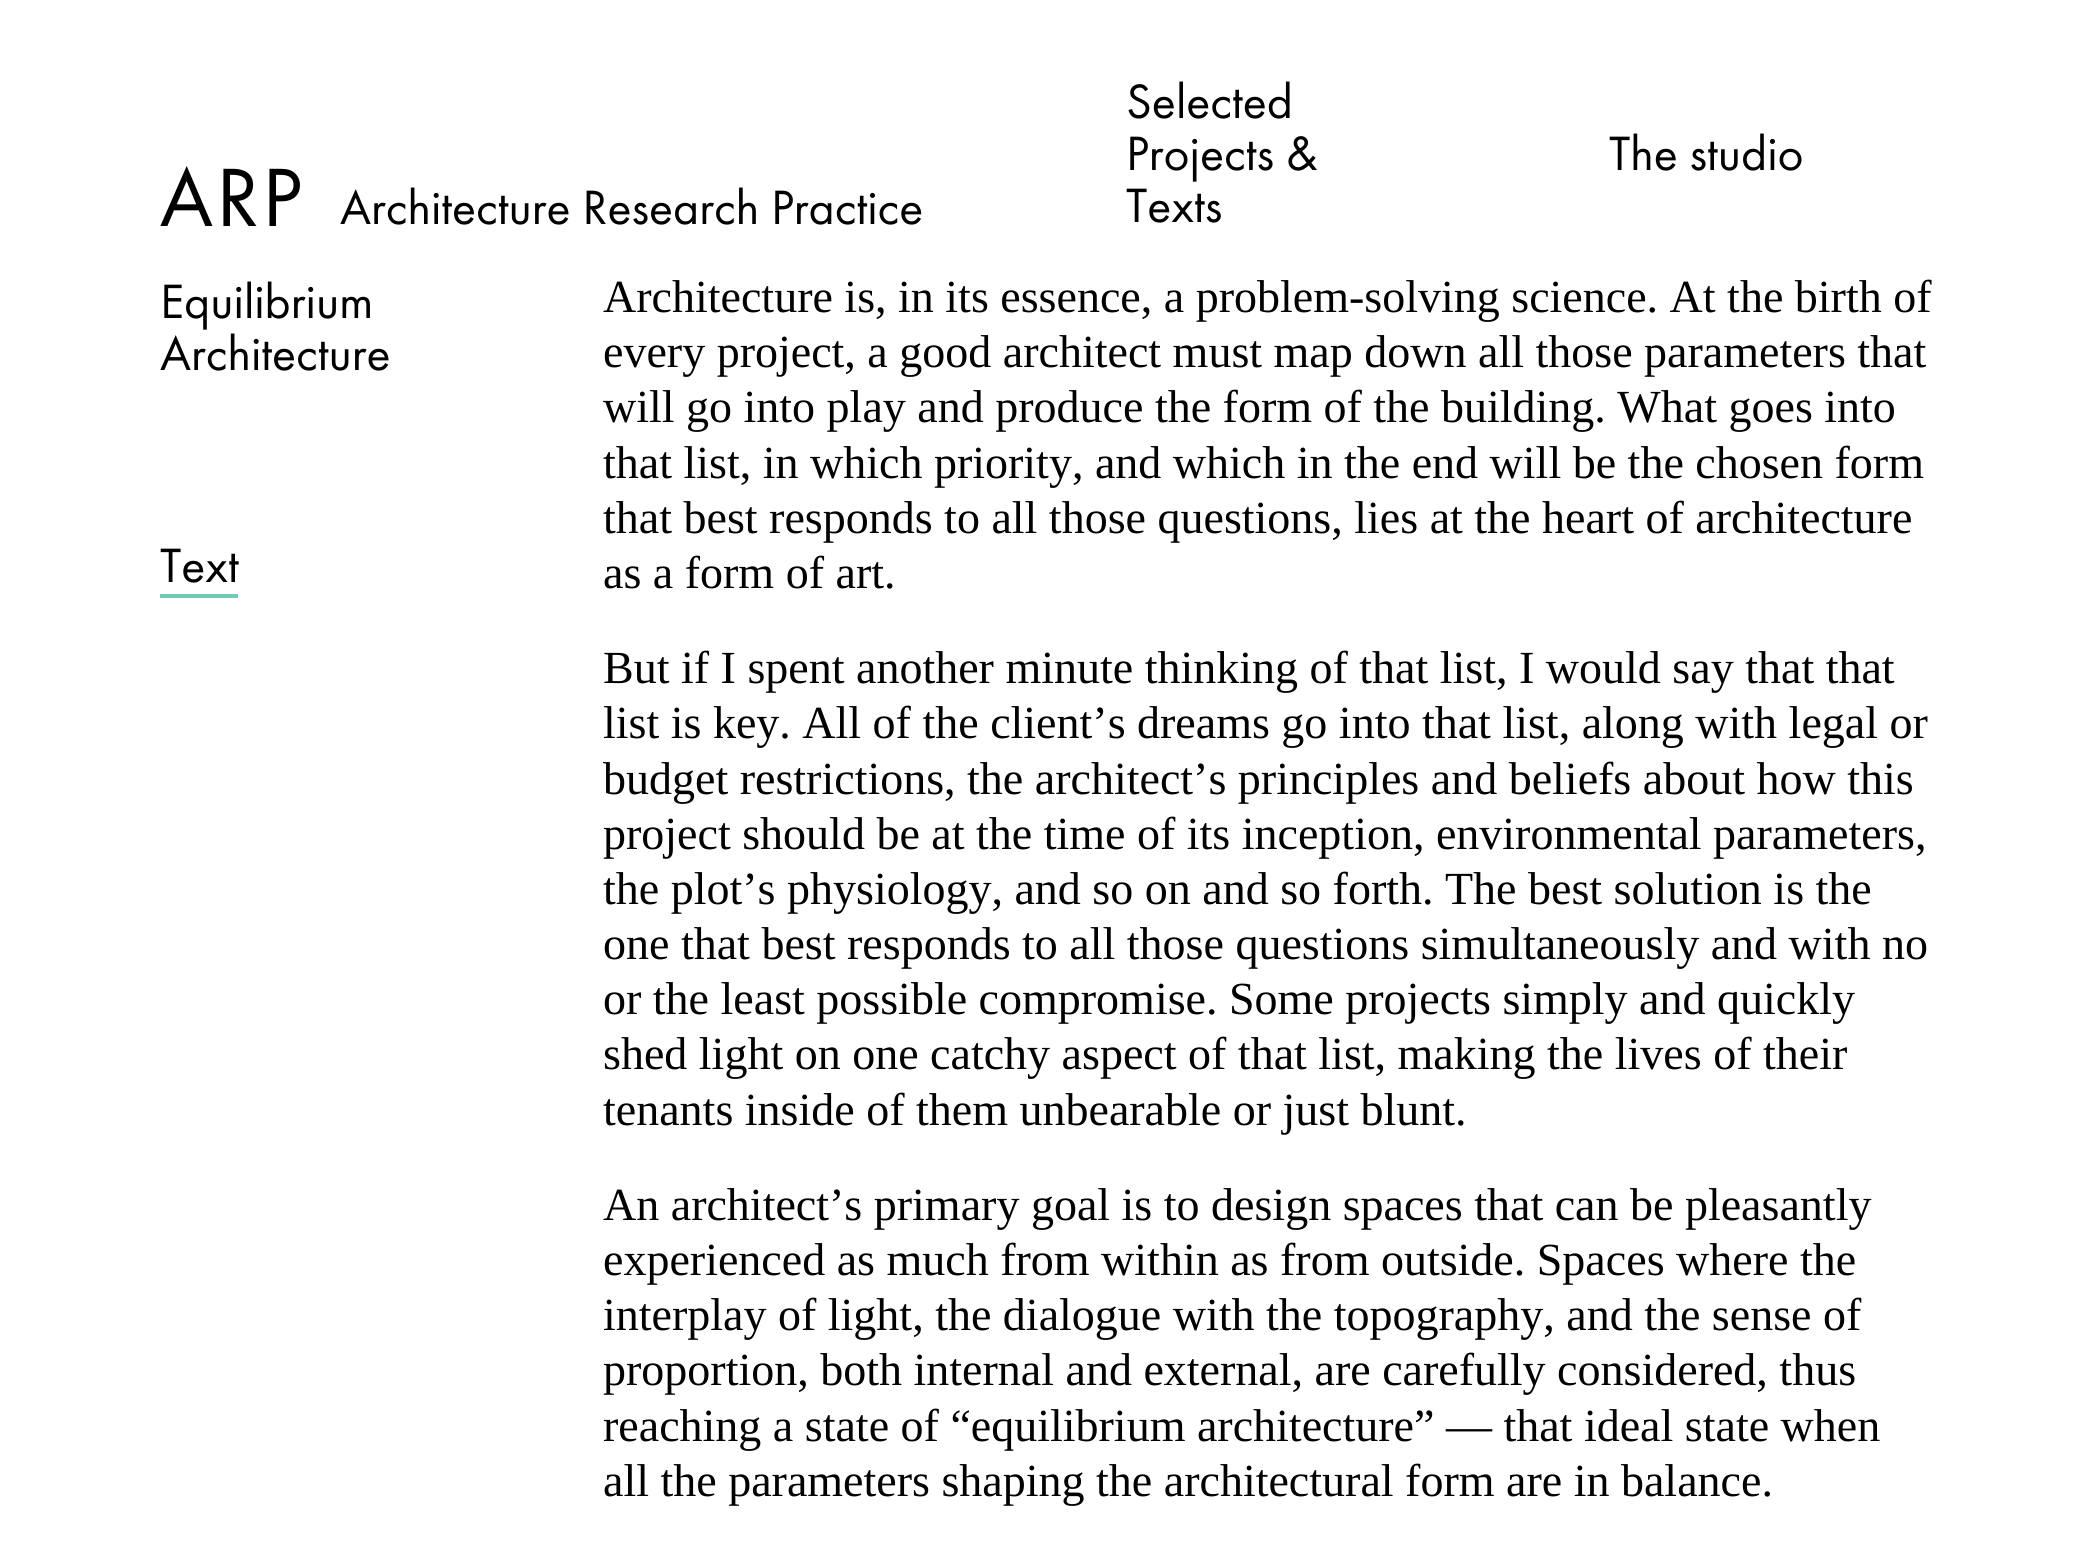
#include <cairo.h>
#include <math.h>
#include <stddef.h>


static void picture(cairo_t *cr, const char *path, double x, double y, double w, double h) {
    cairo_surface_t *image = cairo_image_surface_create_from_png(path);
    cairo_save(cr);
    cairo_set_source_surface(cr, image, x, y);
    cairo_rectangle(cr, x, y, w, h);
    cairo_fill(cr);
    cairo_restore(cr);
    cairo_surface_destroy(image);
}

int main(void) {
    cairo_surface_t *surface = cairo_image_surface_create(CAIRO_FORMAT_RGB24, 2092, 1543);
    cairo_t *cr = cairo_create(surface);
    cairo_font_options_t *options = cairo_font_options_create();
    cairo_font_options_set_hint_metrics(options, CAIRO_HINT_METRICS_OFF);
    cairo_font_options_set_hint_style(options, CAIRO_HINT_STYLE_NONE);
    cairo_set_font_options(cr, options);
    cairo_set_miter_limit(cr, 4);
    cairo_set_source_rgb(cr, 1, 1, 1);
    cairo_paint(cr);
    picture(cr, "img1.png", 160, 166, 140, 60);
    cairo_select_font_face(cr, "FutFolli", CAIRO_FONT_SLANT_NORMAL, CAIRO_FONT_WEIGHT_NORMAL);
    cairo_set_font_size(cr, 50);
    cairo_set_source_rgb(cr, 0, 0, 0);
    cairo_move_to(cr, 340, 224);
    cairo_show_text(cr, "Architecture Research Practice");
    cairo_move_to(cr, 1126, 118);
    cairo_show_text(cr, "Selected");
    cairo_move_to(cr, 1126, 170);
    cairo_show_text(cr, "Projects &");
    cairo_move_to(cr, 1126, 222);
    cairo_show_text(cr, "Texts");
    cairo_move_to(cr, 1609, 170);
    cairo_show_text(cr, "The studio");
    cairo_move_to(cr, 160, 318);
    cairo_show_text(cr, "Equilibrium");
    cairo_move_to(cr, 160, 370);
    cairo_show_text(cr, "Architecture");
    cairo_move_to(cr, 160, 582);
    cairo_show_text(cr, "Text");
    cairo_set_source_rgb(cr, 0.443, 0.792, 0.698);
    cairo_rectangle(cr, 160, 594, 78, 4);
    cairo_fill(cr);
    cairo_select_font_face(cr, "Liberation Serif", CAIRO_FONT_SLANT_NORMAL, CAIRO_FONT_WEIGHT_NORMAL);
    cairo_set_font_size(cr, 46);
    cairo_set_source_rgb(cr, 0, 0, 0);
    cairo_move_to(cr, 603, 312);
    cairo_show_text(cr, "Architecture is, in its essence, a problem-solving science. At the birth of");
    cairo_move_to(cr, 603, 367);
    cairo_show_text(cr, "every project, a good architect must map down all those parameters that");
    cairo_move_to(cr, 603, 422);
    cairo_show_text(cr, "will go into play and produce the form of the building. What goes into");
    cairo_move_to(cr, 603, 478);
    cairo_show_text(cr, "that list, in which priority, and which in the end will be the chosen form");
    cairo_move_to(cr, 603, 533);
    cairo_show_text(cr, "that best responds to all those questions, lies at the heart of architecture");
    cairo_move_to(cr, 603, 588);
    cairo_show_text(cr, "as a form of art.");
    cairo_move_to(cr, 603, 683);
    cairo_show_text(cr, "But if I spent another minute thinking of that list, I would say that that");
    cairo_move_to(cr, 603, 738);
    cairo_show_text(cr, "list is key. All of the client’s dreams go into that list, along with legal or");
    cairo_move_to(cr, 603, 794);
    cairo_show_text(cr, "budget restrictions, the architect’s principles and beliefs about how this");
    cairo_move_to(cr, 603, 849);
    cairo_show_text(cr, "project should be at the time of its inception, environmental parameters,");
    cairo_move_to(cr, 603, 904);
    cairo_show_text(cr, "the plot’s physiology, and so on and so forth. The best solution is the");
    cairo_move_to(cr, 603, 959);
    cairo_show_text(cr, "one that best responds to all those questions simultaneously and with no");
    cairo_move_to(cr, 603, 1014);
    cairo_show_text(cr, "or the least possible compromise. Some projects simply and quickly");
    cairo_move_to(cr, 603, 1069);
    cairo_show_text(cr, "shed light on one catchy aspect of that list, making the lives of their");
    cairo_move_to(cr, 603, 1125);
    cairo_show_text(cr, "tenants inside of them unbearable or just blunt.");
    cairo_move_to(cr, 603, 1220);
    cairo_show_text(cr, "An architect’s primary goal is to design spaces that can be pleasantly");
    cairo_move_to(cr, 603, 1275);
    cairo_show_text(cr, "experienced as much from within as from outside. Spaces where the");
    cairo_move_to(cr, 603, 1330);
    cairo_show_text(cr, "interplay of light, the dialogue with the topography, and the sense of");
    cairo_move_to(cr, 603, 1385);
    cairo_show_text(cr, "proportion, both internal and external, are carefully considered, thus");
    cairo_move_to(cr, 603, 1441);
    cairo_show_text(cr, "reaching a state of “equilibrium architecture” — that ideal state when");
    cairo_move_to(cr, 603, 1496);
    cairo_show_text(cr, "all the parameters shaping the architectural form are in balance.");
    cairo_surface_write_to_png(surface, "page.png");
    cairo_font_options_destroy(options);
    cairo_destroy(cr);
    cairo_surface_destroy(surface);
    return 0;
}
